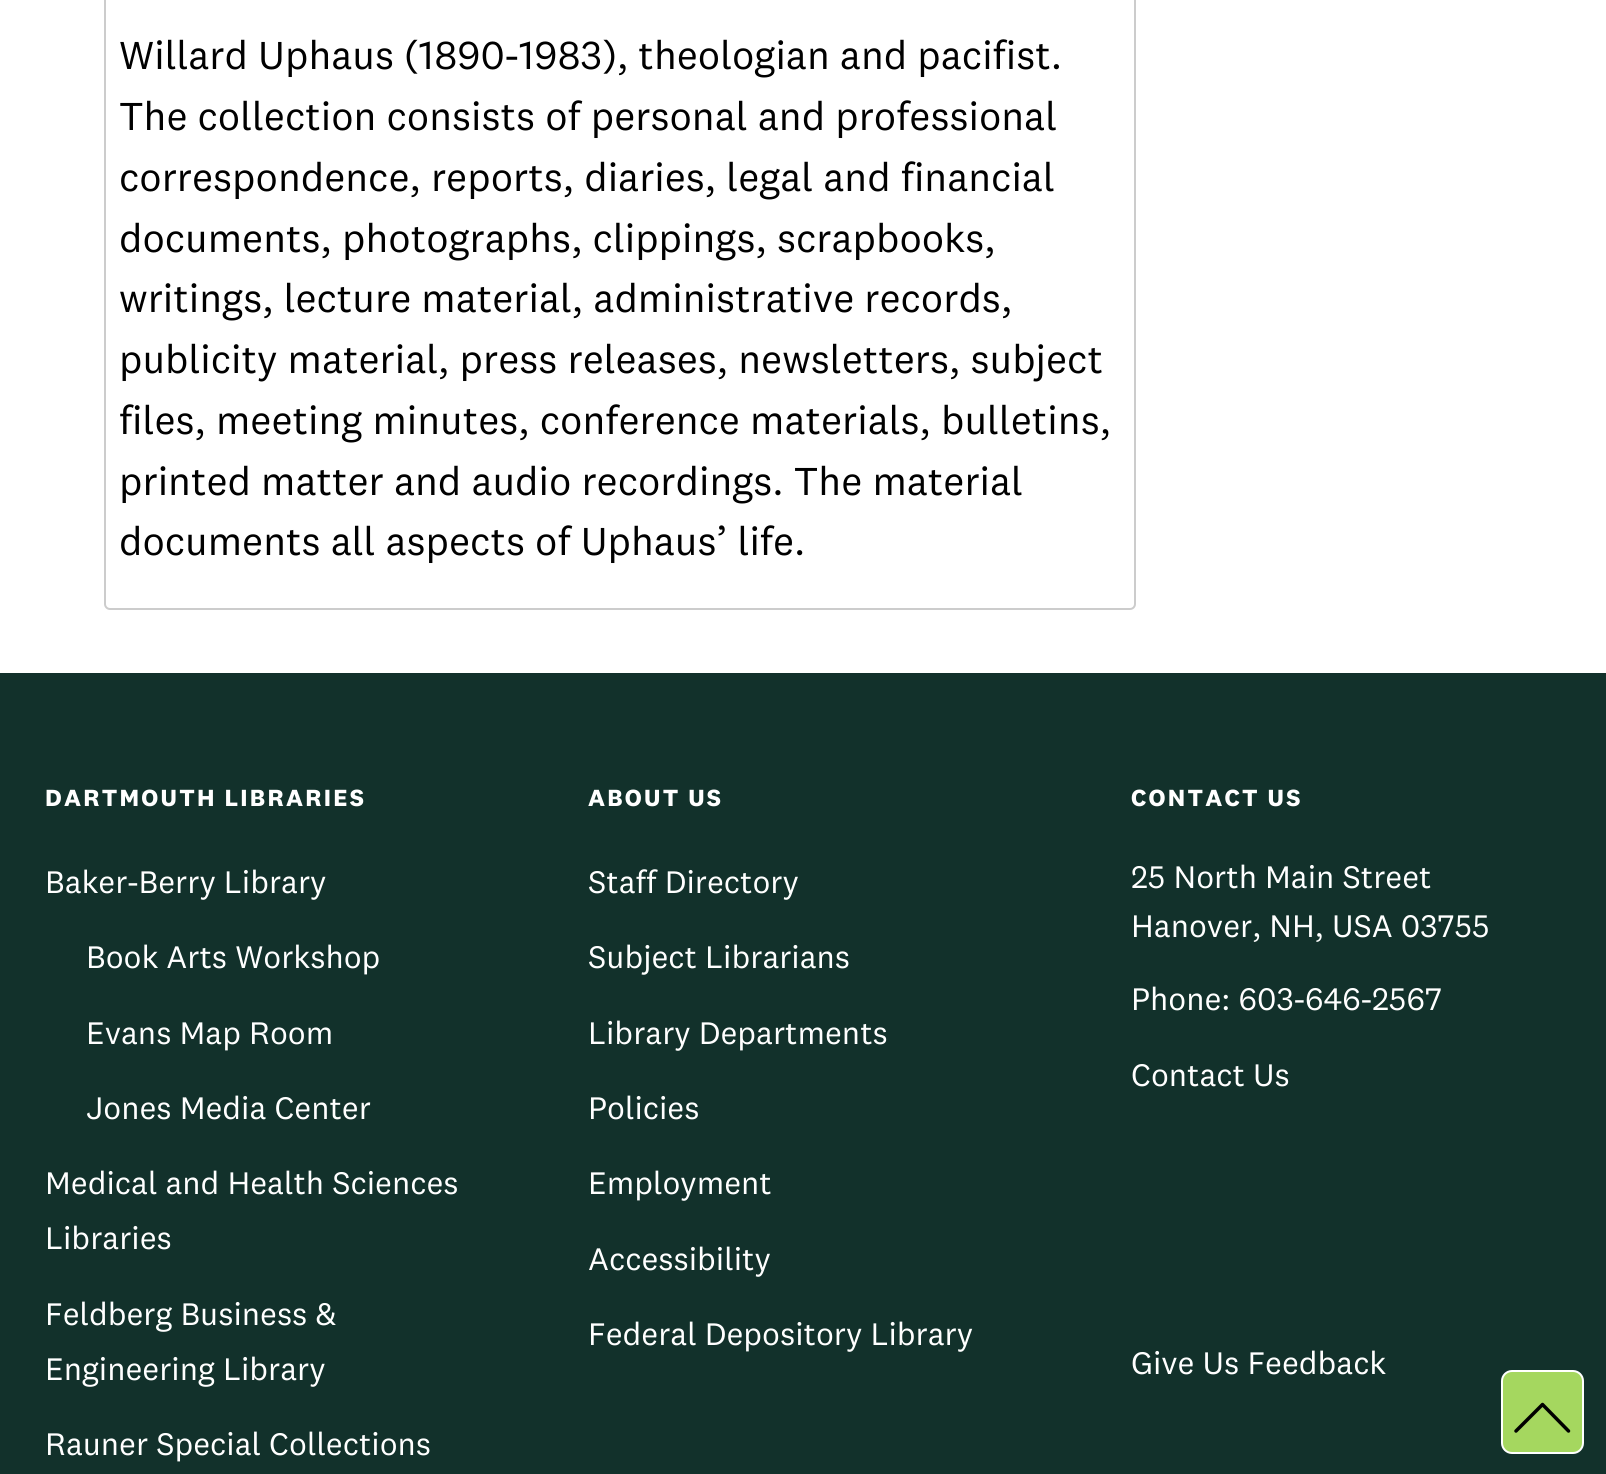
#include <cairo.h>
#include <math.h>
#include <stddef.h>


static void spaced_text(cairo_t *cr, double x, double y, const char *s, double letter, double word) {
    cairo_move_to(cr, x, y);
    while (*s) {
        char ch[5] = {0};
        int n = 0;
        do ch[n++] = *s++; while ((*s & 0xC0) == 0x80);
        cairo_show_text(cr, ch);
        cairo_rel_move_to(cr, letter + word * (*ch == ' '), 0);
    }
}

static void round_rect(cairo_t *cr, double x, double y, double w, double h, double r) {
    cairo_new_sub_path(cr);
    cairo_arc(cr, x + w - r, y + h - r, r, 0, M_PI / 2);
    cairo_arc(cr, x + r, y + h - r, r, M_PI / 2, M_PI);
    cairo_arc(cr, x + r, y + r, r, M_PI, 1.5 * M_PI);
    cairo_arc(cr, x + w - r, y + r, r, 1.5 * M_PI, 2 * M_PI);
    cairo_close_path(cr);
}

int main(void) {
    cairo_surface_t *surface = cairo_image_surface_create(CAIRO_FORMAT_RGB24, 1606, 1474);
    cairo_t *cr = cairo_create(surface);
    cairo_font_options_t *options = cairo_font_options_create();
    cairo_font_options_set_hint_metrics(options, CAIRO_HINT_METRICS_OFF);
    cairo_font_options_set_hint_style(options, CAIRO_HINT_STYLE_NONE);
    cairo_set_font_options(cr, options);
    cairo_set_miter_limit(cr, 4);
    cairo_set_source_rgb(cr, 1, 1, 1);
    cairo_paint(cr);
    round_rect(cr, 105, -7, 1030, 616, 5);
    cairo_set_source_rgb(cr, 0.8, 0.8, 0.8);
    cairo_stroke(cr);
    cairo_select_font_face(cr, "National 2", CAIRO_FONT_SLANT_NORMAL, CAIRO_FONT_WEIGHT_NORMAL);
    cairo_set_font_size(cr, 40.5);
    cairo_set_source_rgb(cr, 0, 0, 0);
    cairo_move_to(cr, 119, 69);
    cairo_show_text(cr, "Willard Uphaus (1890-1983), theologian and pacifist.");
    cairo_move_to(cr, 119, 130);
    cairo_show_text(cr, "The collection consists of personal and professional");
    cairo_move_to(cr, 119, 191);
    cairo_show_text(cr, "correspondence, reports, diaries, legal and financial");
    cairo_move_to(cr, 119, 252);
    cairo_show_text(cr, "documents, photographs, clippings, scrapbooks,");
    cairo_move_to(cr, 119, 312);
    cairo_show_text(cr, "writings, lecture material, administrative records,");
    cairo_move_to(cr, 119, 373);
    cairo_show_text(cr, "publicity material, press releases, newsletters, subject");
    cairo_move_to(cr, 119, 434);
    cairo_show_text(cr, "files, meeting minutes, conference materials, bulletins,");
    cairo_move_to(cr, 119, 495);
    cairo_show_text(cr, "printed matter and audio recordings. The material");
    cairo_move_to(cr, 119, 555);
    cairo_show_text(cr, "documents all aspects of Uphaus’ life.");
    cairo_set_source_rgb(cr, 0.071, 0.192, 0.169);
    cairo_rectangle(cr, 0, 673, 1606, 801);
    cairo_fill(cr);
    cairo_select_font_face(cr, "National 2", CAIRO_FONT_SLANT_NORMAL, CAIRO_FONT_WEIGHT_BOLD);
    cairo_set_font_size(cr, 24.25);
    cairo_set_source_rgb(cr, 1, 1, 1);
    spaced_text(cr, 45, 806, "DARTMOUTH LIBRARIES", 2.25, 0);
    cairo_select_font_face(cr, "National 2", CAIRO_FONT_SLANT_NORMAL, CAIRO_FONT_WEIGHT_NORMAL);
    cairo_set_font_size(cr, 32.4);
    cairo_move_to(cr, 45, 893);
    cairo_show_text(cr, "Baker-Berry Library");
    cairo_move_to(cr, 86, 968);
    cairo_show_text(cr, "Book Arts Workshop");
    cairo_move_to(cr, 86, 1044);
    cairo_show_text(cr, "Evans Map Room");
    cairo_move_to(cr, 86, 1119);
    cairo_show_text(cr, "Jones Media Center");
    cairo_move_to(cr, 45, 1194);
    cairo_show_text(cr, "Medical and Health Sciences");
    cairo_move_to(cr, 45, 1249);
    cairo_show_text(cr, "Libraries");
    cairo_move_to(cr, 45, 1325);
    cairo_show_text(cr, "Feldberg Business &");
    cairo_move_to(cr, 45, 1380);
    cairo_show_text(cr, "Engineering Library");
    cairo_move_to(cr, 45, 1455);
    cairo_show_text(cr, "Rauner Special Collections");
    cairo_select_font_face(cr, "National 2", CAIRO_FONT_SLANT_NORMAL, CAIRO_FONT_WEIGHT_BOLD);
    cairo_set_font_size(cr, 24.25);
    spaced_text(cr, 588, 806, "ABOUT US", 2.25, 0);
    cairo_select_font_face(cr, "National 2", CAIRO_FONT_SLANT_NORMAL, CAIRO_FONT_WEIGHT_NORMAL);
    cairo_set_font_size(cr, 32.4);
    cairo_move_to(cr, 588, 893);
    cairo_show_text(cr, "Staff Directory");
    cairo_move_to(cr, 588, 968);
    cairo_show_text(cr, "Subject Librarians");
    cairo_move_to(cr, 588, 1044);
    cairo_show_text(cr, "Library Departments");
    cairo_move_to(cr, 588, 1119);
    cairo_show_text(cr, "Policies");
    cairo_move_to(cr, 588, 1194);
    cairo_show_text(cr, "Employment");
    cairo_move_to(cr, 588, 1270);
    cairo_show_text(cr, "Accessibility");
    cairo_move_to(cr, 588, 1345);
    cairo_show_text(cr, "Federal Depository Library");
    cairo_select_font_face(cr, "National 2", CAIRO_FONT_SLANT_NORMAL, CAIRO_FONT_WEIGHT_BOLD);
    cairo_set_font_size(cr, 24.25);
    spaced_text(cr, 1131, 806, "CONTACT US", 2.25, 0);
    cairo_select_font_face(cr, "National 2", CAIRO_FONT_SLANT_NORMAL, CAIRO_FONT_WEIGHT_NORMAL);
    cairo_set_font_size(cr, 32.4);
    cairo_move_to(cr, 1131, 888);
    cairo_show_text(cr, "25 North Main Street");
    cairo_move_to(cr, 1131, 937);
    cairo_show_text(cr, "Hanover, NH, USA 03755");
    cairo_move_to(cr, 1131, 1010);
    cairo_show_text(cr, "Phone: 603-646-2567");
    cairo_move_to(cr, 1131, 1086);
    cairo_show_text(cr, "Contact Us");
    cairo_move_to(cr, 1131, 1374);
    cairo_show_text(cr, "Give Us Feedback");
    cairo_set_source_rgb(cr, 0.647, 0.843, 0.373);
    round_rect(cr, 1502, 1371, 81, 82, 10);
    cairo_fill_preserve(cr);
    cairo_set_source_rgb(cr, 1, 1, 1);
    cairo_stroke(cr);
    cairo_new_path(cr);
    cairo_move_to(cr, 1568.5, 1431);
    cairo_line_to(cr, 1542.5, 1404.5);
    cairo_line_to(cr, 1516, 1431);
    cairo_set_source_rgb(cr, 0, 0, 0);
    cairo_set_line_width(cr, 3.5);
    cairo_set_line_cap(cr, CAIRO_LINE_CAP_ROUND);
    cairo_set_line_join(cr, CAIRO_LINE_JOIN_ROUND);
    cairo_stroke(cr);
    cairo_surface_write_to_png(surface, "page.png");
    cairo_font_options_destroy(options);
    cairo_destroy(cr);
    cairo_surface_destroy(surface);
    return 0;
}
